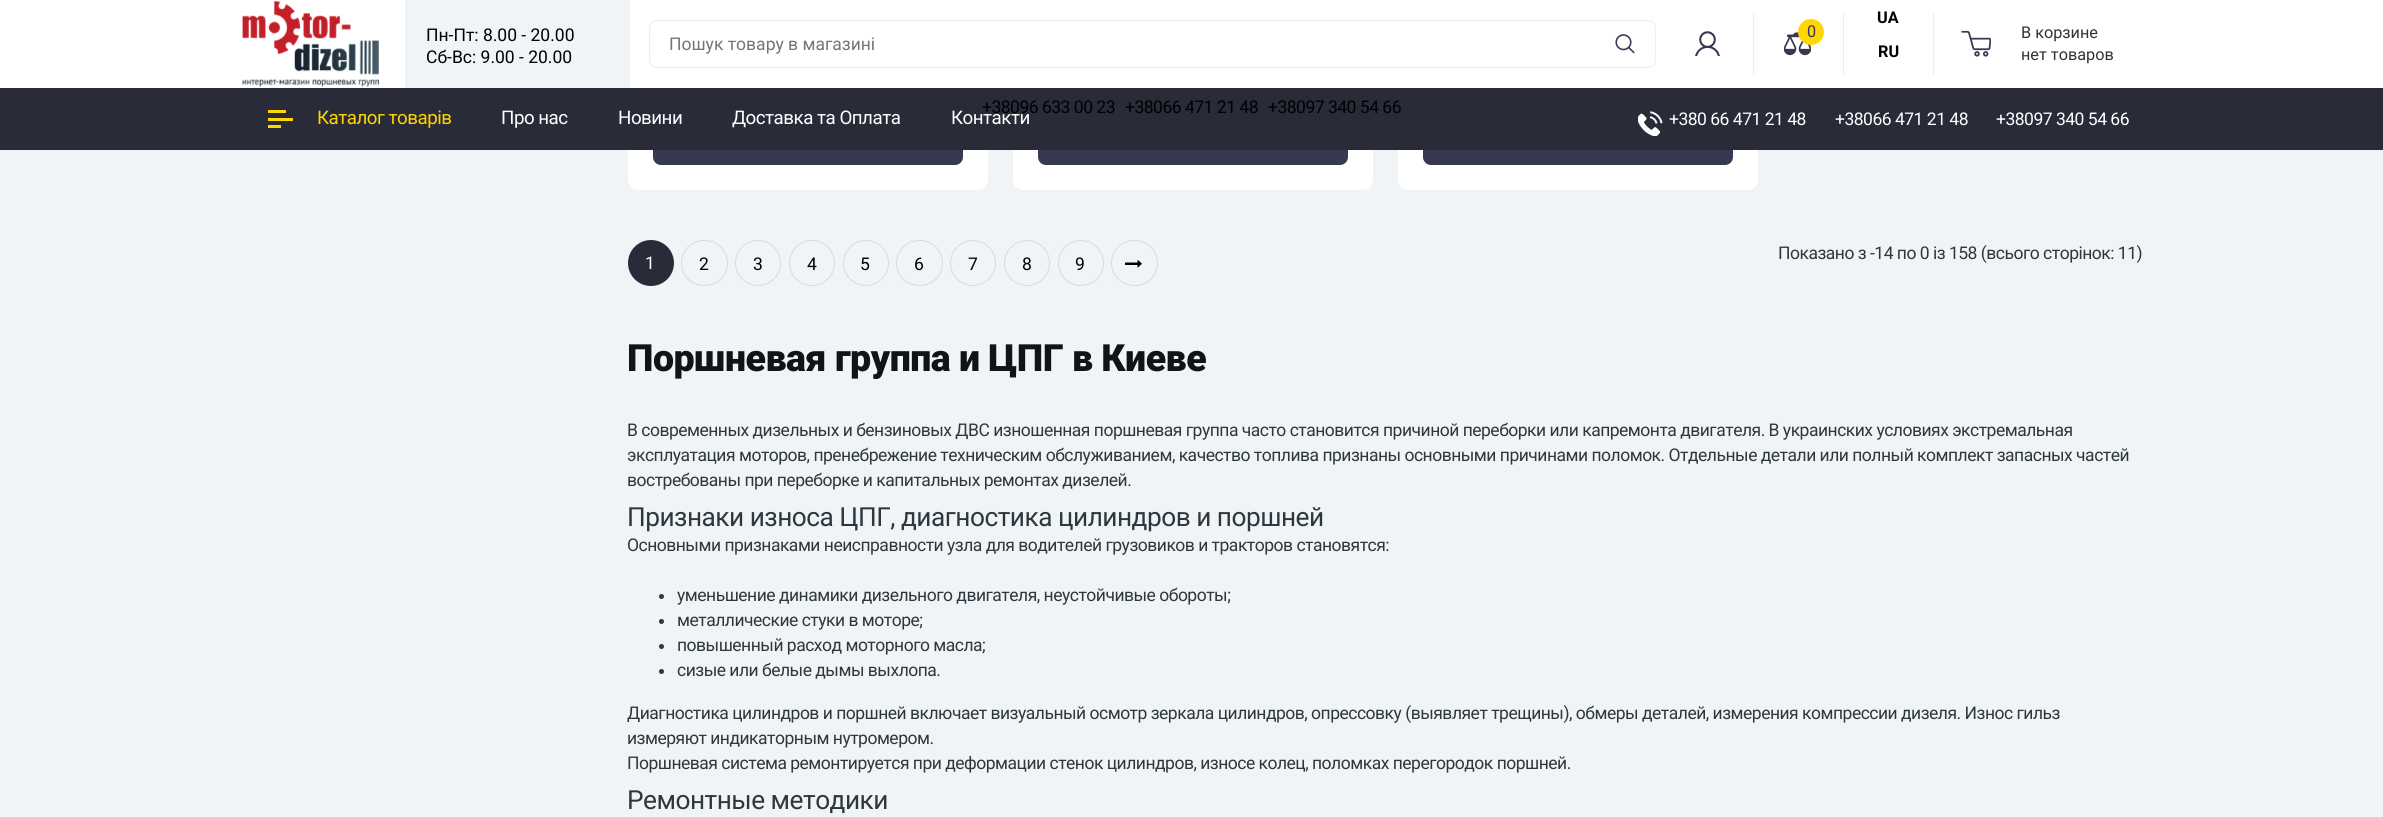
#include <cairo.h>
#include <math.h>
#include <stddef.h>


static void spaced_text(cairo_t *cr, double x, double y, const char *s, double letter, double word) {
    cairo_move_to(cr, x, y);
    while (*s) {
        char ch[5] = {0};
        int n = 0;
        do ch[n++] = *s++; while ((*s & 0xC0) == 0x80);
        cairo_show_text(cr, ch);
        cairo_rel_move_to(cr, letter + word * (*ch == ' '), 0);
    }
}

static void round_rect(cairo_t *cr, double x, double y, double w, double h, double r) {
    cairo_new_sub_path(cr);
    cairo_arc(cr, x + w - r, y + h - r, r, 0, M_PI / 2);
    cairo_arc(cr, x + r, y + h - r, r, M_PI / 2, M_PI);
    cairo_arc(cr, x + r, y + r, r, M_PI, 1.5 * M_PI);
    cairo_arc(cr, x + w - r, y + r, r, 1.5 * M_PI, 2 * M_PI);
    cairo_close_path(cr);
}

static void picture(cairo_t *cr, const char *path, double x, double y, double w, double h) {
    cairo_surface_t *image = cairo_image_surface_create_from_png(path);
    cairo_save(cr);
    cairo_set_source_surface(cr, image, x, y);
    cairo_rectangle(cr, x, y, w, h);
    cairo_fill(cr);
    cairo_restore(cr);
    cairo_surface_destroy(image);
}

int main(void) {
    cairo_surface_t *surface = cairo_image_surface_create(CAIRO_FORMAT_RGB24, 2383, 817);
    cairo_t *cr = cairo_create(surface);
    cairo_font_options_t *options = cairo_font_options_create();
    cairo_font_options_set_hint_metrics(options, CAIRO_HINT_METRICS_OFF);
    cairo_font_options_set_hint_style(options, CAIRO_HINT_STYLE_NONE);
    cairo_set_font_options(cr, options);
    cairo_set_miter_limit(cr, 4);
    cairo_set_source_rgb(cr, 0.945, 0.957, 0.965);
    cairo_paint(cr);
    cairo_set_source_rgb(cr, 1, 1, 1);
    round_rect(cr, 628, -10, 360, 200, 10);
    cairo_fill(cr);
    round_rect(cr, 1013, -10, 360, 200, 10);
    cairo_fill(cr);
    round_rect(cr, 1398, -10, 360, 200, 10);
    cairo_fill(cr);
    cairo_rectangle(cr, 0, 0, 2383, 88);
    cairo_fill(cr);
    picture(cr, "img1.png", 242, 1, 137, 86);
    cairo_set_source_rgb(cr, 0.945, 0.957, 0.965);
    cairo_rectangle(cr, 405, 0, 225, 88);
    cairo_fill(cr);
    cairo_select_font_face(cr, "Roboto", CAIRO_FONT_SLANT_NORMAL, CAIRO_FONT_WEIGHT_NORMAL);
    cairo_set_font_size(cr, 17.5);
    cairo_set_source_rgb(cr, 0, 0, 0);
    cairo_move_to(cr, 426, 41);
    cairo_show_text(cr, "Пн-Пт: 8.00 - 20.00");
    cairo_move_to(cr, 426, 63);
    cairo_show_text(cr, "Сб-Вс: 9.00 - 20.00");
    round_rect(cr, 649.5, 20.5, 1006, 47, 7.5);
    cairo_set_source_rgb(cr, 0.929, 0.929, 0.929);
    cairo_set_line_width(cr, 1);
    cairo_stroke(cr);
    cairo_set_source_rgb(cr, 0.459, 0.459, 0.459);
    cairo_move_to(cr, 669, 50);
    cairo_show_text(cr, "Пошук товару в магазині");
    picture(cr, "img2.png", 1615, 34, 20, 20);
    picture(cr, "img3.png", 1695, 31, 25, 25);
    cairo_set_source_rgb(cr, 0.929, 0.929, 0.929);
    cairo_rectangle(cr, 1753, 13, 1, 62);
    cairo_fill(cr);
    picture(cr, "img4.png", 1784, 32, 27, 24);
    cairo_set_source_rgb(cr, 1, 0.843, 0);
    cairo_arc(cr, 1811, 32, 13, 0, 2 * M_PI);
    cairo_fill(cr);
    cairo_set_font_size(cr, 16.25);
    cairo_set_source_rgb(cr, 0.216, 0.224, 0.322);
    spaced_text(cr, 1807, 37, "0", -0.5, 0);
    cairo_set_source_rgb(cr, 0.929, 0.929, 0.929);
    cairo_rectangle(cr, 1843, 13, 1, 62);
    cairo_fill(cr);
    cairo_select_font_face(cr, "Roboto", CAIRO_FONT_SLANT_NORMAL, CAIRO_FONT_WEIGHT_BOLD);
    cairo_set_source_rgb(cr, 0, 0, 0);
    cairo_move_to(cr, 1877, 23);
    cairo_show_text(cr, "UA");
    cairo_move_to(cr, 1878, 57);
    cairo_show_text(cr, "RU");
    cairo_set_source_rgb(cr, 0.929, 0.929, 0.929);
    cairo_rectangle(cr, 1933, 13, 1, 62);
    cairo_fill(cr);
    picture(cr, "img5.png", 1961, 30, 30, 27);
    cairo_select_font_face(cr, "Roboto", CAIRO_FONT_SLANT_NORMAL, CAIRO_FONT_WEIGHT_NORMAL);
    cairo_set_source_rgb(cr, 0.2, 0.2, 0.2);
    cairo_move_to(cr, 2021, 38);
    cairo_show_text(cr, "В корзине");
    cairo_move_to(cr, 2021, 60);
    cairo_show_text(cr, "нет товаров");
    cairo_set_source_rgb(cr, 0.216, 0.224, 0.322);
    round_rect(cr, 653, 109, 310, 56, 8);
    cairo_fill(cr);
    round_rect(cr, 1038, 109, 310, 56, 8);
    cairo_fill(cr);
    round_rect(cr, 1423, 109, 310, 56, 8);
    cairo_fill(cr);
    cairo_set_source_rgb(cr, 0.161, 0.169, 0.224);
    cairo_rectangle(cr, 0, 88, 2383, 62);
    cairo_fill(cr);
    cairo_set_font_size(cr, 17.5);
    cairo_set_source_rgb(cr, 0, 0, 0);
    spaced_text(cr, 982, 113, "+38096 633 00 23", -0.5, 0);
    spaced_text(cr, 1125, 113, "+38066 471 21 48", -0.5, 0);
    spaced_text(cr, 1268, 113, "+38097 340 54 66", -0.5, 0);
    cairo_set_source_rgb(cr, 1, 0.843, 0);
    cairo_rectangle(cr, 268, 118, 25, 3);
    cairo_fill(cr);
    cairo_rectangle(cr, 268, 110, 18, 3);
    cairo_fill(cr);
    cairo_rectangle(cr, 268, 125, 13, 3);
    cairo_fill(cr);
    cairo_set_font_size(cr, 18.75);
    spaced_text(cr, 317, 124, "Каталог товарів", -0.5, 0);
    cairo_set_source_rgb(cr, 1, 1, 1);
    spaced_text(cr, 501, 124, "Про нас", -0.5, 0);
    spaced_text(cr, 618, 124, "Новини", -0.5, 0);
    spaced_text(cr, 732, 124, "Доставка та Оплата", -0.5, 0);
    spaced_text(cr, 951, 124, "Контакти", -0.5, 0);
    picture(cr, "img6.png", 1638, 111, 25, 25);
    cairo_set_font_size(cr, 17.5);
    spaced_text(cr, 1669, 125, "+380 66 471 21 48", -0.5, 0);
    spaced_text(cr, 1835, 125, "+38066 471 21 48", -0.5, 0);
    spaced_text(cr, 1996, 125, "+38097 340 54 66", -0.5, 0);
    cairo_set_source_rgb(cr, 0.161, 0.169, 0.224);
    cairo_new_path(cr);
    cairo_arc(cr, 651, 263, 23, 0, 2 * M_PI);
    cairo_fill(cr);
    cairo_set_source_rgb(cr, 1, 1, 1);
    spaced_text(cr, 645, 269, "1", -0.5, 0);
    round_rect(cr, 681.5, 240.5, 46, 45, 22.5);
    cairo_set_source_rgb(cr, 0.851, 0.851, 0.851);
    cairo_stroke(cr);
    cairo_set_source_rgb(cr, 0, 0, 0);
    spaced_text(cr, 699, 270, "2", -0.5, 0);
    cairo_new_path(cr);
    cairo_arc(cr, 758, 263, 22.5, 0, 2 * M_PI);
    cairo_set_source_rgb(cr, 0.851, 0.851, 0.851);
    cairo_stroke(cr);
    cairo_set_source_rgb(cr, 0, 0, 0);
    spaced_text(cr, 753, 270, "3", -0.5, 0);
    cairo_new_path(cr);
    cairo_arc(cr, 812, 263, 22.5, 0, 2 * M_PI);
    cairo_set_source_rgb(cr, 0.851, 0.851, 0.851);
    cairo_stroke(cr);
    cairo_set_source_rgb(cr, 0, 0, 0);
    spaced_text(cr, 807, 270, "4", -0.5, 0);
    cairo_new_path(cr);
    cairo_arc(cr, 866, 263, 22.5, 0, 2 * M_PI);
    cairo_set_source_rgb(cr, 0.851, 0.851, 0.851);
    cairo_stroke(cr);
    cairo_set_source_rgb(cr, 0, 0, 0);
    spaced_text(cr, 860, 270, "5", -0.5, 0);
    round_rect(cr, 896.5, 240.5, 46, 45, 22.5);
    cairo_set_source_rgb(cr, 0.851, 0.851, 0.851);
    cairo_stroke(cr);
    cairo_set_source_rgb(cr, 0, 0, 0);
    spaced_text(cr, 914, 270, "6", -0.5, 0);
    cairo_new_path(cr);
    cairo_arc(cr, 973, 263, 22.5, 0, 2 * M_PI);
    cairo_set_source_rgb(cr, 0.851, 0.851, 0.851);
    cairo_stroke(cr);
    cairo_set_source_rgb(cr, 0, 0, 0);
    spaced_text(cr, 968, 270, "7", -0.5, 0);
    cairo_new_path(cr);
    cairo_arc(cr, 1027, 263, 22.5, 0, 2 * M_PI);
    cairo_set_source_rgb(cr, 0.851, 0.851, 0.851);
    cairo_stroke(cr);
    cairo_set_source_rgb(cr, 0, 0, 0);
    spaced_text(cr, 1022, 270, "8", -0.5, 0);
    cairo_new_path(cr);
    cairo_arc(cr, 1081, 263, 22.5, 0, 2 * M_PI);
    cairo_set_source_rgb(cr, 0.851, 0.851, 0.851);
    cairo_stroke(cr);
    cairo_set_source_rgb(cr, 0, 0, 0);
    spaced_text(cr, 1075, 270, "9", -0.5, 0);
    round_rect(cr, 1111.5, 240.5, 46, 45, 22.5);
    cairo_set_source_rgb(cr, 0.851, 0.851, 0.851);
    cairo_stroke(cr);
    picture(cr, "img7.png", 1125, 260, 17, 8);
    cairo_set_source_rgb(cr, 0.173, 0.216, 0.243);
    spaced_text(cr, 1778, 259, "Показано з -14 по 0 із 158 (всього сторінок: 11)", -0.5, 0);
    cairo_select_font_face(cr, "Roboto Black", CAIRO_FONT_SLANT_NORMAL, CAIRO_FONT_WEIGHT_NORMAL);
    cairo_set_font_size(cr, 37.5);
    cairo_set_source_rgb(cr, 0.067, 0.082, 0.086);
    spaced_text(cr, 627, 371, "Поршневая группа и ЦПГ в Киеве", -0.5, 0);
    cairo_select_font_face(cr, "Roboto", CAIRO_FONT_SLANT_NORMAL, CAIRO_FONT_WEIGHT_NORMAL);
    cairo_set_font_size(cr, 17.5);
    cairo_set_source_rgb(cr, 0.173, 0.216, 0.243);
    spaced_text(cr, 627, 436, "В современных дизельных и бензиновых ДВС изношенная поршневая группа часто становится причиной переборки или капремонта двигателя. В украинских условиях экстремальная", -0.5, 0);
    spaced_text(cr, 627, 461, "эксплуатация моторов, пренебрежение техническим обслуживанием, качество топлива признаны основными причинами поломок. Отдельные детали или полный комплект запасных частей", -0.5, 0);
    spaced_text(cr, 627, 486, "востребованы при переборке и капитальных ремонтах дизелей.", -0.5, 0);
    cairo_set_font_size(cr, 26.25);
    spaced_text(cr, 627, 526, "Признаки износа ЦПГ, диагностика цилиндров и поршней", -0.5, 0);
    cairo_set_font_size(cr, 17.5);
    spaced_text(cr, 627, 551, "Основными признаками неисправности узла для водителей грузовиков и тракторов становятся:", -0.5, 0);
    cairo_new_path(cr);
    cairo_arc(cr, 661.5, 596.5, 2.5, 0, 2 * M_PI);
    cairo_fill(cr);
    spaced_text(cr, 677, 601, "уменьшение динамики дизельного двигателя, неустойчивые обороты;", -0.5, 0);
    cairo_new_path(cr);
    cairo_arc(cr, 661.5, 621.5, 2.5, 0, 2 * M_PI);
    cairo_fill(cr);
    spaced_text(cr, 677, 626, "металлические стуки в моторе;", -0.5, 0);
    cairo_new_path(cr);
    cairo_arc(cr, 661.5, 646.5, 2.5, 0, 2 * M_PI);
    cairo_fill(cr);
    spaced_text(cr, 677, 651, "повышенный расход моторного масла;", -0.5, 0);
    cairo_new_path(cr);
    cairo_arc(cr, 661.5, 671.5, 2.5, 0, 2 * M_PI);
    cairo_fill(cr);
    spaced_text(cr, 677, 676, "сизые или белые дымы выхлопа.", -0.5, 0);
    spaced_text(cr, 627, 719, "Диагностика цилиндров и поршней включает визуальный осмотр зеркала цилиндров, опрессовку (выявляет трещины), обмеры деталей, измерения компрессии дизеля. Износ гильз", -0.5, 0);
    spaced_text(cr, 627, 744, "измеряют индикаторным нутромером.", -0.5, 0);
    spaced_text(cr, 627, 769, "Поршневая система ремонтируется при деформации стенок цилиндров, износе колец, поломках перегородок поршней.", -0.5, 0);
    cairo_set_font_size(cr, 26.25);
    spaced_text(cr, 627, 809, "Ремонтные методики", -0.5, 0);
    cairo_surface_write_to_png(surface, "page.png");
    cairo_font_options_destroy(options);
    cairo_destroy(cr);
    cairo_surface_destroy(surface);
    return 0;
}
